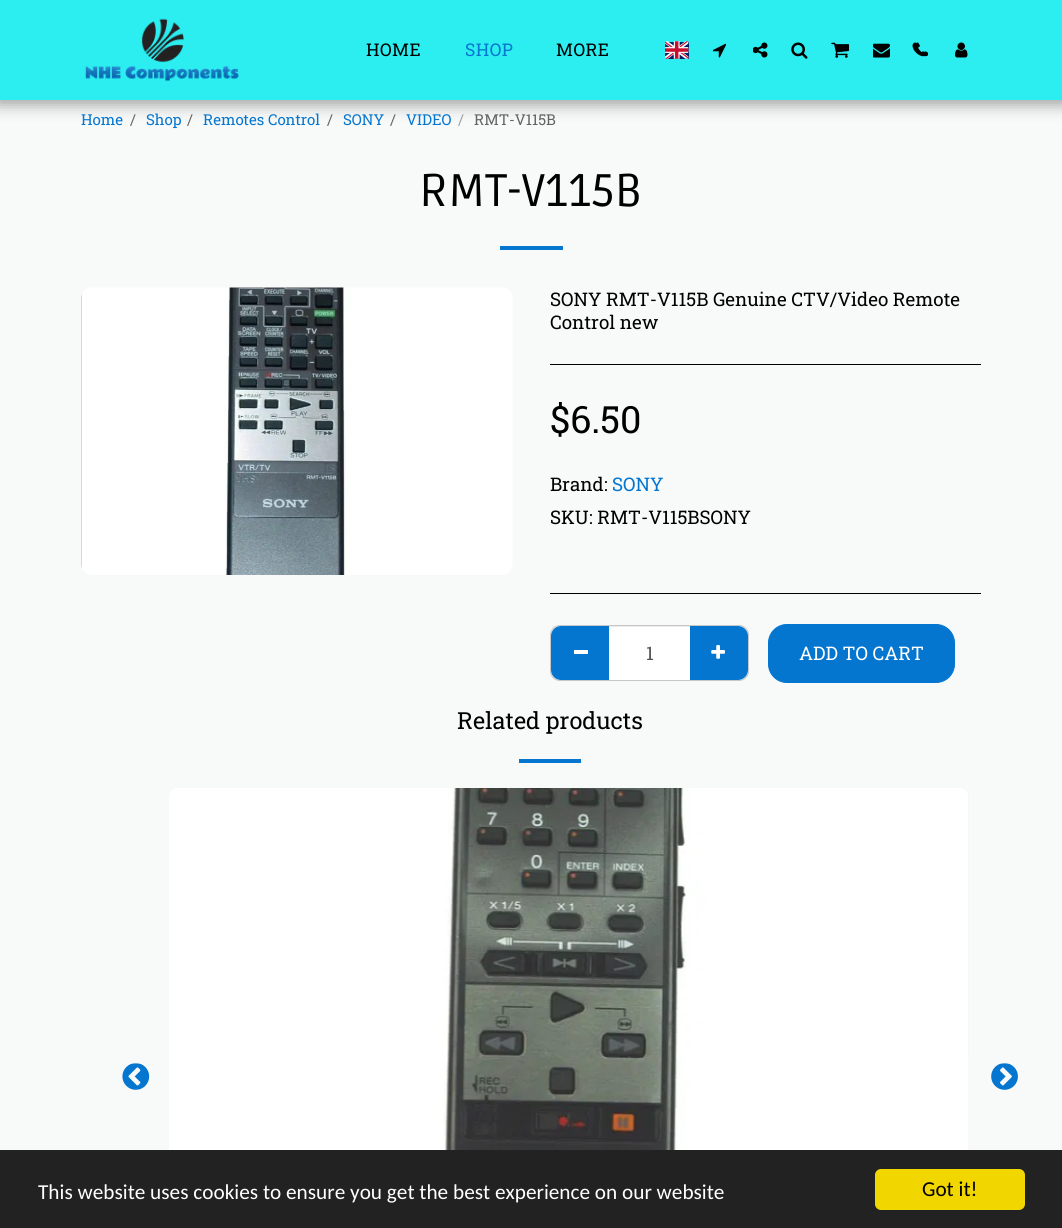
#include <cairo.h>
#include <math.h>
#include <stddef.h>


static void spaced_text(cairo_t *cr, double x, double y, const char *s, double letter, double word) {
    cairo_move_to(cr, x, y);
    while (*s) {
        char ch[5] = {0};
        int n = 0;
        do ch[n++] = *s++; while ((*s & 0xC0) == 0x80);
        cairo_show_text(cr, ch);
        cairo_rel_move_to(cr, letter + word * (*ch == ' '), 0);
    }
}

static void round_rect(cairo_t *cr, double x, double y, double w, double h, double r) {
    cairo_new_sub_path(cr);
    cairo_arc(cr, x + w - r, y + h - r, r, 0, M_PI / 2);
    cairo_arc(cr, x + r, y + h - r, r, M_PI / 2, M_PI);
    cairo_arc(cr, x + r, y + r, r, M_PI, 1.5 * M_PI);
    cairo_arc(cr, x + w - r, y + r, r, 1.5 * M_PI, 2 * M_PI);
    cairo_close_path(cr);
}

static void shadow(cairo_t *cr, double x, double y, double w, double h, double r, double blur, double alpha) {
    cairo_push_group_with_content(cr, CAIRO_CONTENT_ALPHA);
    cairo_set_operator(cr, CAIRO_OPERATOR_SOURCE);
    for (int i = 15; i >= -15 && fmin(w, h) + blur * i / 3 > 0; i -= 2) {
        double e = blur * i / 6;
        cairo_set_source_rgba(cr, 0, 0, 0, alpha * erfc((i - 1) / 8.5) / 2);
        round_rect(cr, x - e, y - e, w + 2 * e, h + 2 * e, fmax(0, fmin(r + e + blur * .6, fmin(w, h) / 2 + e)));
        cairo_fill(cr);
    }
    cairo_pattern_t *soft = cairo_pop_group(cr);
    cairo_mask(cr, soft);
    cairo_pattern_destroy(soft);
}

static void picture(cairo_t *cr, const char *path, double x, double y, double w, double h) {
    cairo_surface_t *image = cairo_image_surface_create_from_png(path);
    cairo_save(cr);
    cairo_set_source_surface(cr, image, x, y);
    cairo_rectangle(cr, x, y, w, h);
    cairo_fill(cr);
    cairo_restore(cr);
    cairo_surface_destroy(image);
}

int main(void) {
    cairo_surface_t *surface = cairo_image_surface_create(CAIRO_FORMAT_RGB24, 1062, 1228);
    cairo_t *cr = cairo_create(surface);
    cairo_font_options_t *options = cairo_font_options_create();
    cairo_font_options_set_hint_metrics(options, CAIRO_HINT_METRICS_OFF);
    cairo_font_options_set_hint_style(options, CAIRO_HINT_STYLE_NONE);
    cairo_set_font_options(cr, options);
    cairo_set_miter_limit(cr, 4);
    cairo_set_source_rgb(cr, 0.969, 0.976, 0.973);
    cairo_paint(cr);
    cairo_set_source_rgb(cr, 0, 0, 0);
    shadow(cr, -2, 0, 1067, 105, 0, 7.5, 0.35);
    cairo_set_source_rgb(cr, 0.173, 0.933, 0.941);
    cairo_rectangle(cr, 0, 0, 1062, 100);
    cairo_fill(cr);
    picture(cr, "img1.png", 85, 18, 154, 64);
    cairo_select_font_face(cr, "Roboto Slab", CAIRO_FONT_SLANT_NORMAL, CAIRO_FONT_WEIGHT_NORMAL);
    cairo_set_font_size(cr, 17.5);
    cairo_set_source_rgb(cr, 0, 0, 0);
    spaced_text(cr, 366, 56, "HOME", 0.5, 0);
    cairo_set_source_rgb(cr, 0.016, 0.463, 0.816);
    spaced_text(cr, 465, 56, "SHOP", 0.5, 0);
    cairo_set_source_rgb(cr, 0, 0, 0);
    spaced_text(cr, 556, 56, "MORE", 0.5, 0);
    picture(cr, "img2.png", 665, 41, 24, 18);
    picture(cr, "img3.png", 713, 43, 13, 15);
    picture(cr, "img4.png", 753, 42, 15, 16);
    picture(cr, "img5.png", 791, 42, 17, 17);
    picture(cr, "img6.png", 831, 42, 18, 16);
    picture(cr, "img7.png", 873, 43, 17, 15);
    picture(cr, "img8.png", 915, 42, 13, 15);
    picture(cr, "img9.png", 912, 42, 13, 15);
    picture(cr, "img10.png", 955, 42, 13, 16);
    cairo_set_font_size(cr, 15);
    cairo_set_source_rgb(cr, 0.016, 0.463, 0.816);
    cairo_move_to(cr, 81, 125);
    cairo_show_text(cr, "Home");
    cairo_set_source_rgb(cr, 0.388, 0.392, 0.388);
    cairo_move_to(cr, 130, 125);
    cairo_show_text(cr, "/");
    cairo_set_source_rgb(cr, 0.016, 0.463, 0.816);
    cairo_move_to(cr, 146, 125);
    cairo_show_text(cr, "Shop");
    cairo_set_source_rgb(cr, 0.388, 0.392, 0.388);
    cairo_move_to(cr, 187, 125);
    cairo_show_text(cr, "/");
    cairo_set_source_rgb(cr, 0.016, 0.463, 0.816);
    cairo_move_to(cr, 203, 125);
    cairo_show_text(cr, "Remotes Control");
    cairo_set_source_rgb(cr, 0.388, 0.392, 0.388);
    cairo_move_to(cr, 327, 125);
    cairo_show_text(cr, "/");
    cairo_set_source_rgb(cr, 0.016, 0.463, 0.816);
    cairo_move_to(cr, 343, 125);
    cairo_show_text(cr, "SONY");
    cairo_set_source_rgb(cr, 0.388, 0.392, 0.388);
    cairo_move_to(cr, 390, 125);
    cairo_show_text(cr, "/");
    cairo_set_source_rgb(cr, 0.016, 0.463, 0.816);
    cairo_move_to(cr, 406, 125);
    cairo_show_text(cr, "VIDEO");
    cairo_set_source_rgb(cr, 0.62, 0.624, 0.624);
    cairo_move_to(cr, 458, 125);
    cairo_show_text(cr, "/");
    cairo_set_source_rgb(cr, 0.388, 0.392, 0.388);
    cairo_move_to(cr, 474, 125);
    cairo_show_text(cr, "RMT-V115B");
    cairo_select_font_face(cr, "Ruda", CAIRO_FONT_SLANT_NORMAL, CAIRO_FONT_WEIGHT_NORMAL);
    cairo_set_font_size(cr, 45.75);
    cairo_set_source_rgb(cr, 0, 0, 0);
    cairo_move_to(cr, 419, 206);
    cairo_show_text(cr, "RMT-V115B");
    cairo_set_source_rgb(cr, 0.016, 0.463, 0.816);
    cairo_rectangle(cr, 500, 246, 63, 4);
    cairo_fill(cr);
    picture(cr, "img11.png", 81, 287, 432, 288);
    cairo_select_font_face(cr, "Roboto Slab", CAIRO_FONT_SLANT_NORMAL, CAIRO_FONT_WEIGHT_NORMAL);
    cairo_set_font_size(cr, 18.75);
    cairo_set_source_rgb(cr, 0, 0, 0);
    cairo_move_to(cr, 550, 306);
    cairo_show_text(cr, "SONY RMT-V115B Genuine CTV/Video Remote");
    cairo_move_to(cr, 550, 329);
    cairo_show_text(cr, "Control new");
    cairo_rectangle(cr, 550, 364, 431, 1);
    cairo_fill(cr);
    cairo_set_font_size(cr, 37.5);
    cairo_move_to(cr, 550, 433);
    cairo_show_text(cr, "$6.50");
    cairo_set_font_size(cr, 18.75);
    cairo_move_to(cr, 550, 491);
    cairo_show_text(cr, "Brand:");
    cairo_set_source_rgb(cr, 0.016, 0.463, 0.816);
    cairo_move_to(cr, 612, 491);
    cairo_show_text(cr, "SONY");
    cairo_set_source_rgb(cr, 0, 0, 0);
    cairo_move_to(cr, 550, 524);
    cairo_show_text(cr, "SKU: RMT-V115BSONY");
    cairo_rectangle(cr, 550, 593, 431, 1);
    cairo_fill(cr);
    round_rect(cr, 550.5, 625.5, 198, 55, 9.5);
    cairo_set_source_rgb(cr, 0.776, 0.78, 0.776);
    cairo_set_line_width(cr, 1);
    cairo_stroke(cr);
    cairo_set_source_rgb(cr, 0.016, 0.463, 0.816);
    cairo_new_path(cr);
    cairo_move_to(cr, 561, 626);
    cairo_line_to(cr, 610, 626);
    cairo_line_to(cr, 610, 680);
    cairo_line_to(cr, 561, 680);
    cairo_curve_to(cr, 555.5, 680, 551, 675.5, 551, 670);
    cairo_line_to(cr, 551, 636);
    cairo_curve_to(cr, 551, 630.5, 555.5, 626, 561, 626);
    cairo_close_path(cr);
    cairo_fill(cr);
    cairo_set_source_rgb(cr, 1, 1, 1);
    cairo_rectangle(cr, 574, 650, 14, 4);
    cairo_fill(cr);
    cairo_set_source_rgb(cr, 0.016, 0.463, 0.816);
    cairo_new_path(cr);
    cairo_move_to(cr, 689, 626);
    cairo_line_to(cr, 738, 626);
    cairo_curve_to(cr, 743.5, 626, 748, 630.5, 748, 636);
    cairo_line_to(cr, 748, 670);
    cairo_curve_to(cr, 748, 675.5, 743.5, 680, 738, 680);
    cairo_line_to(cr, 689, 680);
    cairo_close_path(cr);
    cairo_fill(cr);
    cairo_set_source_rgb(cr, 1, 1, 1);
    cairo_rectangle(cr, 609, 627, 81, 53);
    cairo_fill(cr);
    cairo_set_source_rgb(cr, 0.925, 0.925, 0.925);
    cairo_rectangle(cr, 609, 626, 81, 1);
    cairo_fill(cr);
    cairo_set_source_rgb(cr, 0.333, 0.333, 0.333);
    cairo_move_to(cr, 646, 660);
    cairo_show_text(cr, "1");
    picture(cr, "img12.png", 711, 645, 14, 14);
    cairo_set_source_rgb(cr, 0.016, 0.463, 0.816);
    round_rect(cr, 768.5, 624.5, 186, 58, 18.5);
    cairo_fill_preserve(cr);
    cairo_stroke(cr);
    cairo_set_source_rgb(cr, 1, 1, 1);
    cairo_move_to(cr, 799, 660);
    cairo_show_text(cr, "ADD TO CART");
    cairo_set_font_size(cr, 23.5);
    cairo_set_source_rgb(cr, 0, 0, 0);
    cairo_move_to(cr, 457, 729);
    cairo_show_text(cr, "Related products");
    cairo_set_source_rgb(cr, 0.016, 0.463, 0.816);
    cairo_rectangle(cr, 519, 759, 62, 4);
    cairo_fill(cr);
    picture(cr, "img13.png", 122, 1063, 28, 27);
    cairo_set_source_rgb(cr, 0.922, 0.922, 0.922);
    round_rect(cr, 169, 788, 800, 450, 10);
    cairo_fill(cr);
    picture(cr, "img14.png", 169, 788, 800, 362);
    picture(cr, "img15.png", 991, 1063, 27, 27);
    cairo_set_source_rgb(cr, 0.133, 0.133, 0.133);
    cairo_rectangle(cr, 0, 1150, 1062, 78);
    cairo_fill(cr);
    cairo_select_font_face(cr, "Carlito", CAIRO_FONT_SLANT_NORMAL, CAIRO_FONT_WEIGHT_NORMAL);
    cairo_set_font_size(cr, 21.25);
    cairo_set_source_rgb(cr, 1, 1, 1);
    cairo_move_to(cr, 38, 1199);
    cairo_show_text(cr, "This website uses cookies to ensure you get the best experience on our website");
    cairo_set_source_rgb(cr, 0.945, 0.839, 0);
    round_rect(cr, 875, 1169, 150, 41, 6);
    cairo_fill(cr);
    cairo_set_source_rgb(cr, 0, 0, 0);
    cairo_move_to(cr, 922, 1196);
    cairo_show_text(cr, "Got it!");
    cairo_surface_write_to_png(surface, "page.png");
    cairo_font_options_destroy(options);
    cairo_destroy(cr);
    cairo_surface_destroy(surface);
    return 0;
}
